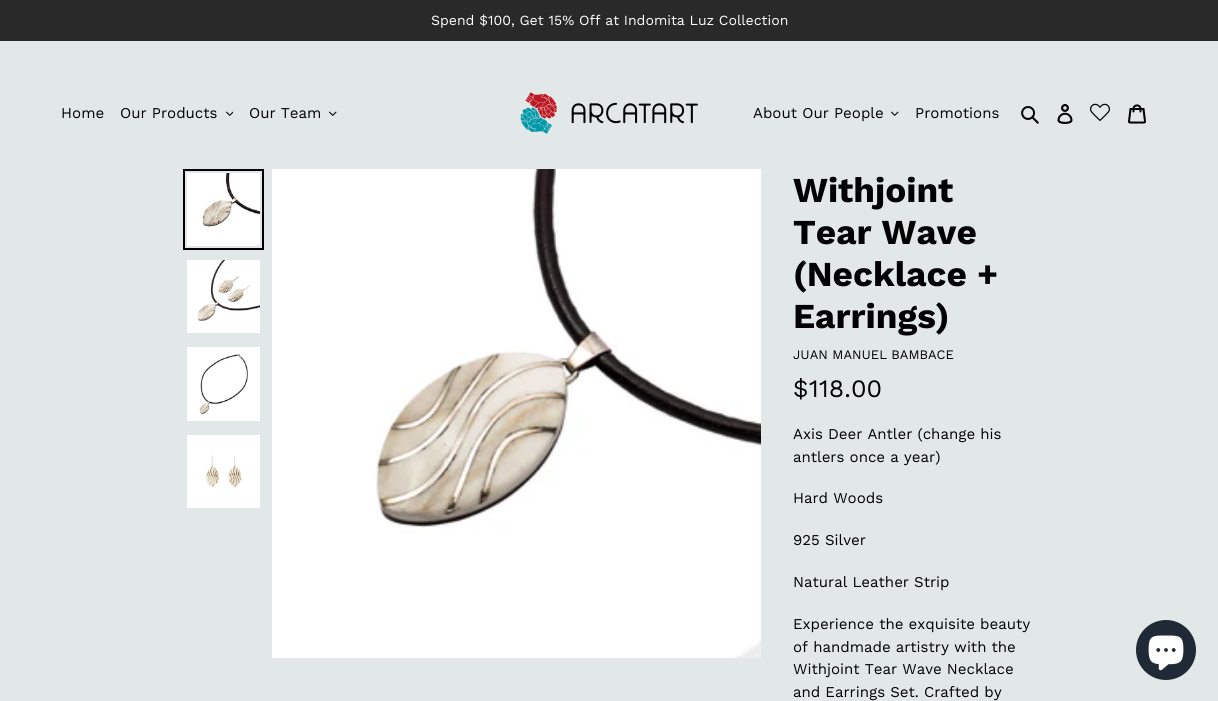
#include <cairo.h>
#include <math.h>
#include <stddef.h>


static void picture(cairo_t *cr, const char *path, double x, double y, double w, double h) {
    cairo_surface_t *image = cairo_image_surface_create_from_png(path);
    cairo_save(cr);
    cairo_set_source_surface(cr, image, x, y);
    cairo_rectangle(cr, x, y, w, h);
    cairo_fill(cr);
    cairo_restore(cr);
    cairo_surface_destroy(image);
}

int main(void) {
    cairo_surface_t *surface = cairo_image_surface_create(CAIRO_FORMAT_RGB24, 1218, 701);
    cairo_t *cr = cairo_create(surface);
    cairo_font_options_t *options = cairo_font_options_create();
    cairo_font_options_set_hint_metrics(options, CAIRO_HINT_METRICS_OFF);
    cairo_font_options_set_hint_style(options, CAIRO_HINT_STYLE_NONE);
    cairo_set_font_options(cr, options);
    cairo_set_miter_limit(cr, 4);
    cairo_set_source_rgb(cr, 0.886, 0.906, 0.906);
    cairo_paint(cr);
    cairo_set_source_rgb(cr, 0.161, 0.161, 0.161);
    cairo_rectangle(cr, 0, 0, 1218, 41);
    cairo_fill(cr);
    cairo_select_font_face(cr, "Work Sans", CAIRO_FONT_SLANT_NORMAL, CAIRO_FONT_WEIGHT_NORMAL);
    cairo_set_font_size(cr, 14);
    cairo_set_source_rgb(cr, 1, 1, 1);
    cairo_move_to(cr, 431, 25);
    cairo_show_text(cr, "Spend $100, Get 15% Off at Indomita Luz Collection");
    cairo_set_font_size(cr, 15);
    cairo_set_source_rgb(cr, 0, 0, 0);
    cairo_move_to(cr, 61, 118);
    cairo_show_text(cr, "Home");
    cairo_move_to(cr, 120, 118);
    cairo_show_text(cr, "Our Products");
    picture(cr, "img1.png", 226, 111, 7, 5);
    cairo_move_to(cr, 249, 118);
    cairo_show_text(cr, "Our Team");
    picture(cr, "img2.png", 329, 111, 8, 5);
    picture(cr, "img3.png", 520, 92, 178, 42);
    cairo_move_to(cr, 753, 118);
    cairo_show_text(cr, "About Our People");
    picture(cr, "img2.png", 891, 111, 8, 5);
    cairo_move_to(cr, 915, 118);
    cairo_show_text(cr, "Promotions");
    picture(cr, "img4.png", 1021, 106, 18, 18);
    picture(cr, "img5.png", 1057, 104, 16, 20);
    picture(cr, "img6.png", 1090, 103, 20, 19);
    picture(cr, "img7.png", 1128, 104, 18, 20);
    cairo_rectangle(cr, 184, 170, 79, 79);
    cairo_stroke(cr);
    picture(cr, "img8.png", 187, 173, 73, 73);
    picture(cr, "img9.png", 187, 260, 73, 73);
    picture(cr, "img10.png", 187, 347, 73, 74);
    picture(cr, "img11.png", 187, 435, 73, 73);
    picture(cr, "img12.png", 272, 169, 489, 489);
    cairo_select_font_face(cr, "Work Sans", CAIRO_FONT_SLANT_NORMAL, CAIRO_FONT_WEIGHT_BOLD);
    cairo_set_font_size(cr, 35);
    cairo_move_to(cr, 793, 202);
    cairo_show_text(cr, "Withjoint");
    cairo_move_to(cr, 793, 244);
    cairo_show_text(cr, "Tear Wave");
    cairo_move_to(cr, 793, 286);
    cairo_show_text(cr, "(Necklace +");
    cairo_move_to(cr, 793, 328);
    cairo_show_text(cr, "Earrings)");
    cairo_select_font_face(cr, "Work Sans", CAIRO_FONT_SLANT_NORMAL, CAIRO_FONT_WEIGHT_NORMAL);
    cairo_set_font_size(cr, 13);
    cairo_move_to(cr, 793, 359);
    cairo_show_text(cr, "JUAN MANUEL BAMBACE");
    cairo_set_font_size(cr, 25);
    cairo_move_to(cr, 793, 397);
    cairo_show_text(cr, "$118.00");
    cairo_set_font_size(cr, 15);
    cairo_move_to(cr, 793, 439);
    cairo_show_text(cr, "Axis Deer Antler (change his");
    cairo_move_to(cr, 793, 462);
    cairo_show_text(cr, "antlers once a year)");
    cairo_move_to(cr, 793, 503);
    cairo_show_text(cr, "Hard Woods");
    cairo_move_to(cr, 793, 545);
    cairo_show_text(cr, "925 Silver");
    cairo_move_to(cr, 793, 587);
    cairo_show_text(cr, "Natural Leather Strip");
    cairo_move_to(cr, 793, 629);
    cairo_show_text(cr, "Experience the exquisite beauty");
    cairo_move_to(cr, 793, 652);
    cairo_show_text(cr, "of handmade artistry with the");
    cairo_move_to(cr, 793, 674);
    cairo_show_text(cr, "Withjoint Tear Wave Necklace");
    cairo_move_to(cr, 793, 697);
    cairo_show_text(cr, "and Earrings Set. Crafted by");
    cairo_set_source_rgb(cr, 0.125, 0.165, 0.212);
    cairo_new_path(cr);
    cairo_arc(cr, 1166, 650, 30, 0, 2 * M_PI);
    cairo_fill(cr);
    picture(cr, "img13.png", 1148, 635, 36, 36);
    cairo_surface_write_to_png(surface, "page.png");
    cairo_font_options_destroy(options);
    cairo_destroy(cr);
    cairo_surface_destroy(surface);
    return 0;
}
